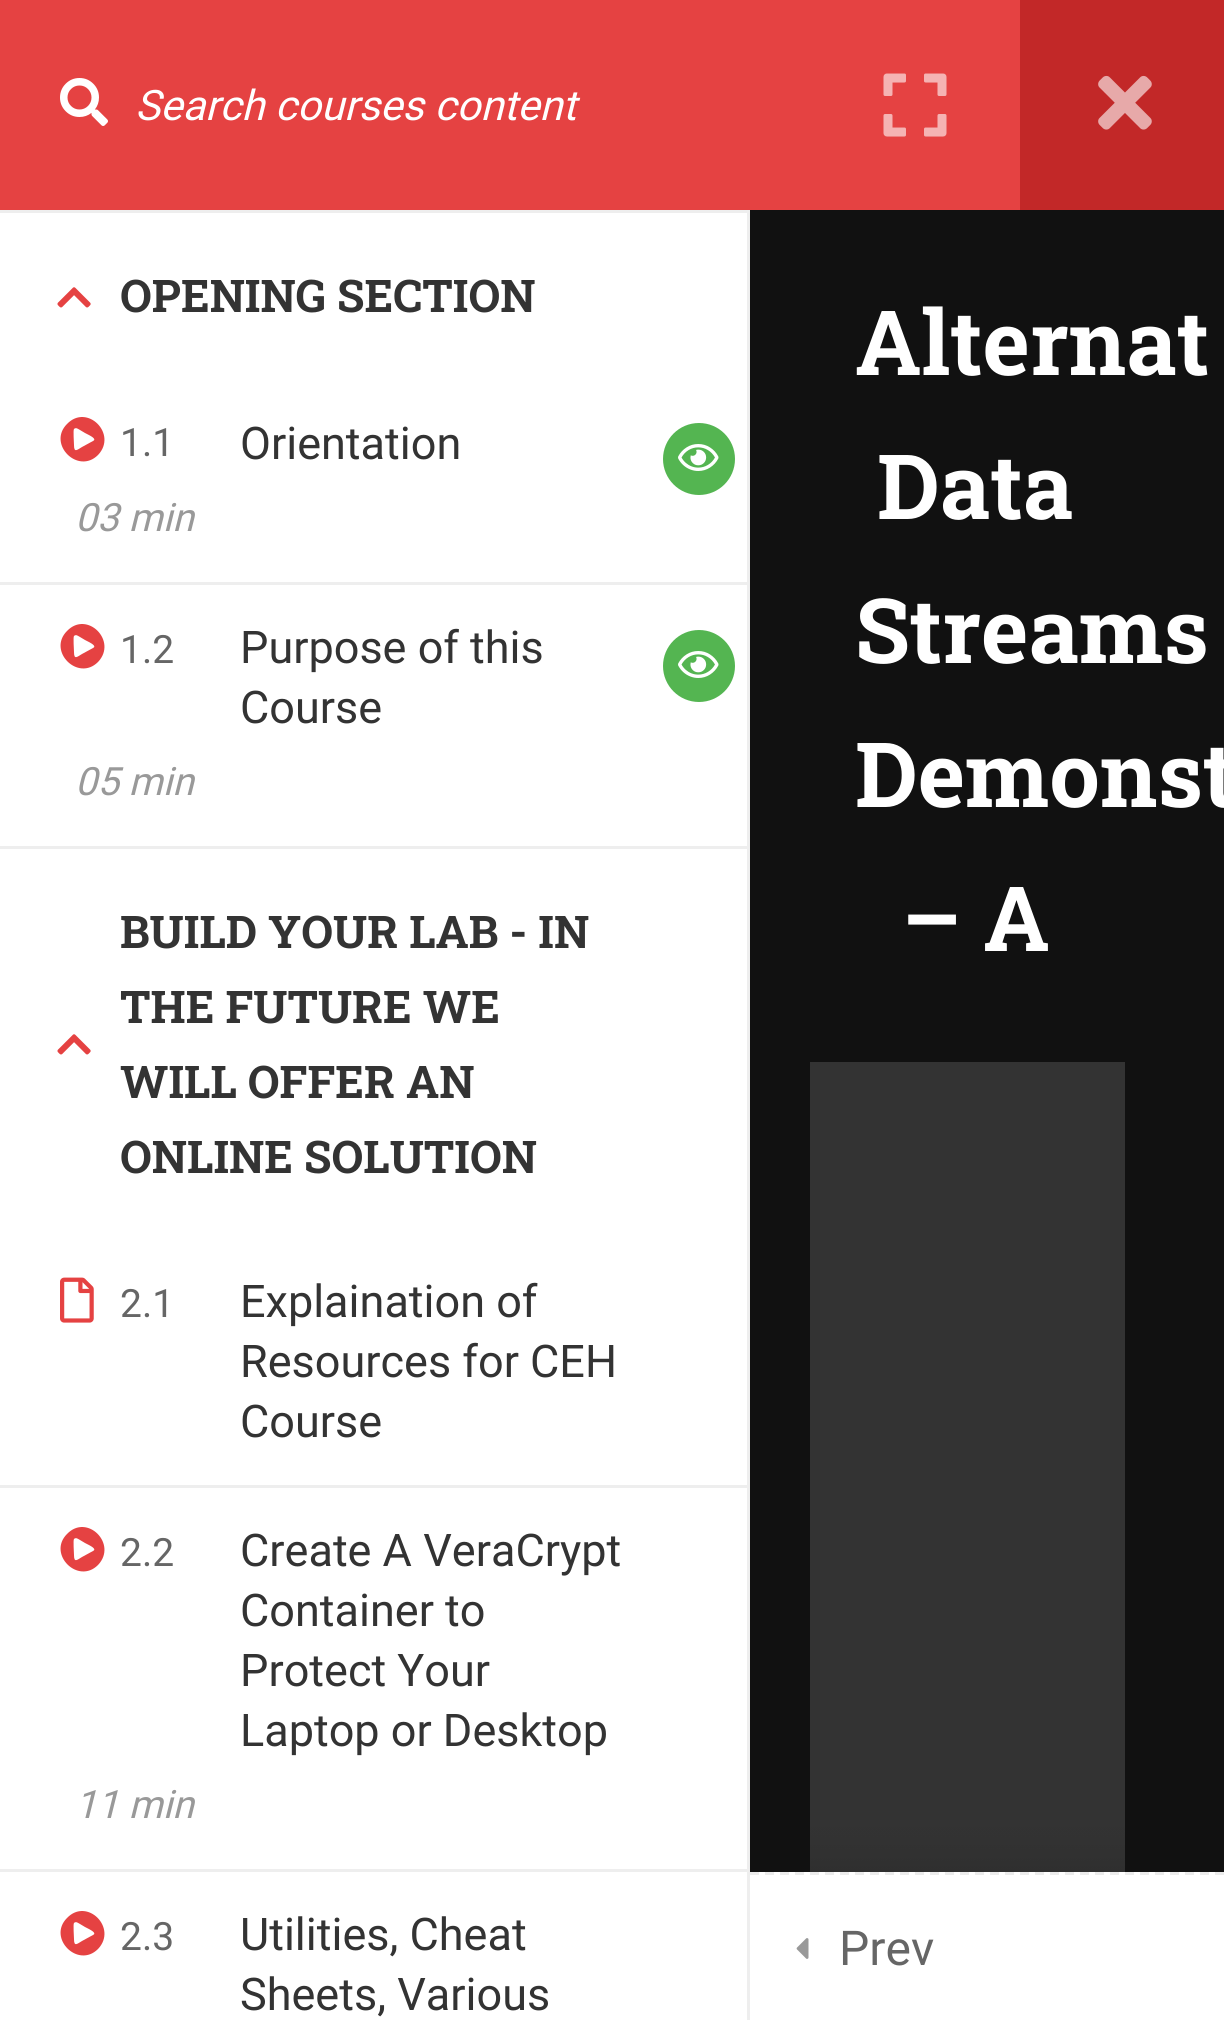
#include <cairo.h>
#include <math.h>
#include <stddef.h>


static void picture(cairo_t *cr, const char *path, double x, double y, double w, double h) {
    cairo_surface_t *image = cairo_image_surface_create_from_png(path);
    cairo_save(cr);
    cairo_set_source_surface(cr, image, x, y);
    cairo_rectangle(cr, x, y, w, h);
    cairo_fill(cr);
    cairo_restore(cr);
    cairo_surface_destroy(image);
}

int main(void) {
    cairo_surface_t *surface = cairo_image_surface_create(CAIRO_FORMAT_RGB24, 1224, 2020);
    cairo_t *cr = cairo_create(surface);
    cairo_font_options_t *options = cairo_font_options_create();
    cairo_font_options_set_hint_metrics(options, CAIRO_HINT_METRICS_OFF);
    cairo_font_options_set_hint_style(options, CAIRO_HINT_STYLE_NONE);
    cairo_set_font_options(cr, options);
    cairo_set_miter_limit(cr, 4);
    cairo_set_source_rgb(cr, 1, 1, 1);
    cairo_paint(cr);
    cairo_set_source_rgb(cr, 0.898, 0.259, 0.259);
    cairo_rectangle(cr, 0, 0, 1020, 210);
    cairo_fill(cr);
    picture(cr, "img1.png", 60, 78, 48, 48);
    cairo_select_font_face(cr, "Roboto", CAIRO_FONT_SLANT_ITALIC, CAIRO_FONT_WEIGHT_NORMAL);
    cairo_set_font_size(cr, 42);
    cairo_set_source_rgb(cr, 1, 1, 1);
    cairo_move_to(cr, 135, 120);
    cairo_show_text(cr, "Search courses content");
    cairo_set_source_rgb(cr, 0.933, 0.933, 0.933);
    cairo_rectangle(cr, 0, 210, 747, 3);
    cairo_fill(cr);
    cairo_rectangle(cr, 0, 846, 747, 3);
    cairo_fill(cr);
    picture(cr, "img2.png", 57, 287, 34, 21);
    cairo_select_font_face(cr, "Roboto Slab", CAIRO_FONT_SLANT_NORMAL, CAIRO_FONT_WEIGHT_BOLD);
    cairo_set_font_size(cr, 45);
    cairo_set_source_rgb(cr, 0.2, 0.2, 0.2);
    cairo_move_to(cr, 120, 312);
    cairo_show_text(cr, "OPENING SECTION");
    cairo_set_source_rgb(cr, 0.898, 0.259, 0.259);
    cairo_new_path(cr);
    cairo_move_to(cr, 67, 424);
    cairo_curve_to(cr, 87, 403, 118, 434, 98, 455);
    cairo_curve_to(cr, 78, 475, 47, 444, 67, 424);
    cairo_close_path(cr);
    cairo_move_to(cr, 93, 441);
    cairo_curve_to(cr, 97, 439, 91, 436, 85, 433);
    cairo_line_to(cr, 80, 430);
    cairo_curve_to(cr, 78, 429, 76, 427, 74, 429);
    cairo_curve_to(cr, 73, 430, 74, 443, 74, 445);
    cairo_curve_to(cr, 74, 453, 77, 450, 82, 447);
    cairo_close_path(cr);
    cairo_fill(cr);
    cairo_select_font_face(cr, "Roboto", CAIRO_FONT_SLANT_NORMAL, CAIRO_FONT_WEIGHT_NORMAL);
    cairo_set_font_size(cr, 39);
    cairo_set_source_rgb(cr, 0.4, 0.4, 0.4);
    cairo_move_to(cr, 120, 456);
    cairo_show_text(cr, "1.1");
    cairo_set_font_size(cr, 45);
    cairo_set_source_rgb(cr, 0.2, 0.2, 0.2);
    cairo_move_to(cr, 240, 459);
    cairo_show_text(cr, "Orientation");
    cairo_set_source_rgb(cr, 0.329, 0.71, 0.318);
    cairo_new_path(cr);
    cairo_arc(cr, 699, 459, 36, 0, 2 * M_PI);
    cairo_fill(cr);
    picture(cr, "img3.png", 678, 444, 41, 27);
    cairo_select_font_face(cr, "Roboto", CAIRO_FONT_SLANT_ITALIC, CAIRO_FONT_WEIGHT_NORMAL);
    cairo_set_font_size(cr, 39);
    cairo_set_source_rgb(cr, 0.6, 0.6, 0.6);
    cairo_move_to(cr, 75, 531);
    cairo_show_text(cr, "03 min");
    cairo_set_source_rgb(cr, 0.933, 0.933, 0.933);
    cairo_rectangle(cr, 0, 582, 747, 3);
    cairo_fill(cr);
    cairo_set_source_rgb(cr, 0.898, 0.259, 0.259);
    cairo_new_path(cr);
    cairo_move_to(cr, 67, 631);
    cairo_curve_to(cr, 87, 610, 118, 641, 98, 662);
    cairo_curve_to(cr, 78, 682, 47, 651, 67, 631);
    cairo_close_path(cr);
    cairo_move_to(cr, 93, 648);
    cairo_curve_to(cr, 97, 646, 91, 643, 85, 640);
    cairo_line_to(cr, 80, 637);
    cairo_curve_to(cr, 78, 636, 76, 634, 74, 636);
    cairo_curve_to(cr, 73, 637, 74, 650, 74, 652);
    cairo_curve_to(cr, 74, 660, 77, 657, 82, 654);
    cairo_close_path(cr);
    cairo_fill(cr);
    cairo_select_font_face(cr, "Roboto", CAIRO_FONT_SLANT_NORMAL, CAIRO_FONT_WEIGHT_NORMAL);
    cairo_set_source_rgb(cr, 0.4, 0.4, 0.4);
    cairo_move_to(cr, 120, 663);
    cairo_show_text(cr, "1.2");
    cairo_set_font_size(cr, 45);
    cairo_set_source_rgb(cr, 0.2, 0.2, 0.2);
    cairo_move_to(cr, 240, 663);
    cairo_show_text(cr, "Purpose of this");
    cairo_move_to(cr, 240, 723);
    cairo_show_text(cr, "Course");
    cairo_set_source_rgb(cr, 0.329, 0.71, 0.318);
    cairo_new_path(cr);
    cairo_arc(cr, 699, 666, 36, 0, 2 * M_PI);
    cairo_fill(cr);
    picture(cr, "img3.png", 678, 651, 41, 27);
    cairo_select_font_face(cr, "Roboto", CAIRO_FONT_SLANT_ITALIC, CAIRO_FONT_WEIGHT_NORMAL);
    cairo_set_font_size(cr, 39);
    cairo_set_source_rgb(cr, 0.6, 0.6, 0.6);
    cairo_move_to(cr, 75, 795);
    cairo_show_text(cr, "05 min");
    cairo_select_font_face(cr, "Roboto Slab", CAIRO_FONT_SLANT_NORMAL, CAIRO_FONT_WEIGHT_BOLD);
    cairo_set_font_size(cr, 45);
    cairo_set_source_rgb(cr, 0.2, 0.2, 0.2);
    cairo_move_to(cr, 120, 948);
    cairo_show_text(cr, "BUILD YOUR LAB - IN");
    cairo_move_to(cr, 120, 1023);
    cairo_show_text(cr, "THE FUTURE WE");
    picture(cr, "img2.png", 57, 1034, 34, 21);
    cairo_move_to(cr, 120, 1098);
    cairo_show_text(cr, "WILL OFFER AN");
    cairo_move_to(cr, 120, 1173);
    cairo_show_text(cr, "ONLINE SOLUTION");
    picture(cr, "img4.png", 60, 1277, 34, 46);
    cairo_select_font_face(cr, "Roboto", CAIRO_FONT_SLANT_NORMAL, CAIRO_FONT_WEIGHT_NORMAL);
    cairo_set_font_size(cr, 39);
    cairo_set_source_rgb(cr, 0.4, 0.4, 0.4);
    cairo_move_to(cr, 120, 1317);
    cairo_show_text(cr, "2.1");
    cairo_set_font_size(cr, 45);
    cairo_set_source_rgb(cr, 0.2, 0.2, 0.2);
    cairo_move_to(cr, 240, 1317);
    cairo_show_text(cr, "Explaination of");
    cairo_move_to(cr, 240, 1377);
    cairo_show_text(cr, "Resources for CEH");
    cairo_move_to(cr, 240, 1437);
    cairo_show_text(cr, "Course");
    cairo_set_source_rgb(cr, 0.933, 0.933, 0.933);
    cairo_rectangle(cr, 0, 1485, 747, 3);
    cairo_fill(cr);
    cairo_set_source_rgb(cr, 0.898, 0.259, 0.259);
    cairo_new_path(cr);
    cairo_move_to(cr, 67, 1534);
    cairo_curve_to(cr, 87, 1513, 118, 1544, 98, 1565);
    cairo_curve_to(cr, 78, 1585, 47, 1554, 67, 1534);
    cairo_close_path(cr);
    cairo_move_to(cr, 93, 1551);
    cairo_curve_to(cr, 97, 1549, 91, 1546, 85, 1543);
    cairo_line_to(cr, 80, 1540);
    cairo_curve_to(cr, 78, 1539, 76, 1537, 74, 1539);
    cairo_curve_to(cr, 73, 1540, 74, 1553, 74, 1555);
    cairo_curve_to(cr, 74, 1563, 77, 1560, 82, 1557);
    cairo_close_path(cr);
    cairo_fill(cr);
    cairo_set_font_size(cr, 39);
    cairo_set_source_rgb(cr, 0.4, 0.4, 0.4);
    cairo_move_to(cr, 120, 1566);
    cairo_show_text(cr, "2.2");
    cairo_set_font_size(cr, 45);
    cairo_set_source_rgb(cr, 0.2, 0.2, 0.2);
    cairo_move_to(cr, 240, 1566);
    cairo_show_text(cr, "Create A VeraCrypt");
    cairo_move_to(cr, 240, 1626);
    cairo_show_text(cr, "Container to");
    cairo_move_to(cr, 240, 1686);
    cairo_show_text(cr, "Protect Your");
    cairo_move_to(cr, 240, 1746);
    cairo_show_text(cr, "Laptop or Desktop");
    cairo_select_font_face(cr, "Roboto", CAIRO_FONT_SLANT_ITALIC, CAIRO_FONT_WEIGHT_NORMAL);
    cairo_set_font_size(cr, 39);
    cairo_set_source_rgb(cr, 0.6, 0.6, 0.6);
    cairo_move_to(cr, 75, 1818);
    cairo_show_text(cr, "11 min");
    cairo_set_source_rgb(cr, 0.933, 0.933, 0.933);
    cairo_rectangle(cr, 0, 1869, 747, 3);
    cairo_fill(cr);
    cairo_set_source_rgb(cr, 0.898, 0.259, 0.259);
    cairo_new_path(cr);
    cairo_move_to(cr, 67, 1918);
    cairo_curve_to(cr, 87, 1897, 118, 1928, 98, 1949);
    cairo_curve_to(cr, 78, 1969, 47, 1938, 67, 1918);
    cairo_close_path(cr);
    cairo_move_to(cr, 93, 1935);
    cairo_curve_to(cr, 97, 1933, 91, 1930, 85, 1927);
    cairo_line_to(cr, 80, 1924);
    cairo_curve_to(cr, 78, 1923, 76, 1921, 74, 1923);
    cairo_curve_to(cr, 73, 1924, 74, 1937, 74, 1939);
    cairo_curve_to(cr, 74, 1947, 77, 1944, 82, 1941);
    cairo_close_path(cr);
    cairo_fill(cr);
    cairo_select_font_face(cr, "Roboto", CAIRO_FONT_SLANT_NORMAL, CAIRO_FONT_WEIGHT_NORMAL);
    cairo_set_source_rgb(cr, 0.4, 0.4, 0.4);
    cairo_move_to(cr, 120, 1950);
    cairo_show_text(cr, "2.3");
    cairo_set_font_size(cr, 45);
    cairo_set_source_rgb(cr, 0.2, 0.2, 0.2);
    cairo_move_to(cr, 240, 1950);
    cairo_show_text(cr, "Utilities, Cheat");
    cairo_move_to(cr, 240, 2010);
    cairo_show_text(cr, "Sheets, Various");
    cairo_set_source_rgb(cr, 0.933, 0.933, 0.933);
    cairo_rectangle(cr, 747, 210, 3, 1810);
    cairo_fill(cr);
    picture(cr, "img5.png", 883, 73, 64, 64);
    cairo_set_source_rgb(cr, 0.761, 0.157, 0.157);
    cairo_rectangle(cr, 1020, 0, 204, 210);
    cairo_fill(cr);
    picture(cr, "img6.png", 1098, 75, 54, 55);
    cairo_set_source_rgb(cr, 0.067, 0.067, 0.067);
    cairo_rectangle(cr, 750, 210, 474, 1662);
    cairo_fill(cr);
    cairo_select_font_face(cr, "Roboto Slab", CAIRO_FONT_SLANT_NORMAL, CAIRO_FONT_WEIGHT_BOLD);
    cairo_set_font_size(cr, 90);
    cairo_set_source_rgb(cr, 1, 1, 1);
    cairo_move_to(cr, 855, 375);
    cairo_show_text(cr, "Alternat");
    cairo_move_to(cr, 877, 519);
    cairo_show_text(cr, "Data");
    cairo_move_to(cr, 855, 663);
    cairo_show_text(cr, "Streams");
    cairo_move_to(cr, 855, 807);
    cairo_show_text(cr, "Demonst");
    cairo_move_to(cr, 901, 951);
    cairo_show_text(cr, "– A");
    picture(cr, "img7.png", 810, 1062, 315, 810);
    cairo_new_path(cr);
    cairo_move_to(cr, 750, 1873.5);
    cairo_line_to(cr, 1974, 1873.5);
    cairo_set_source_rgb(cr, 0.922, 0.922, 0.922);
    cairo_set_line_width(cr, 3);
    cairo_set_dash(cr, (double[]){9, 6}, 2, 0);
    cairo_stroke(cr);
    picture(cr, "img8.png", 796, 1938, 13, 21);
    cairo_select_font_face(cr, "Roboto", CAIRO_FONT_SLANT_NORMAL, CAIRO_FONT_WEIGHT_NORMAL);
    cairo_set_font_size(cr, 48);
    cairo_set_source_rgb(cr, 0.4, 0.4, 0.4);
    cairo_move_to(cr, 839, 1965);
    cairo_show_text(cr, "Prev");
    cairo_surface_write_to_png(surface, "page.png");
    cairo_font_options_destroy(options);
    cairo_destroy(cr);
    cairo_surface_destroy(surface);
    return 0;
}
